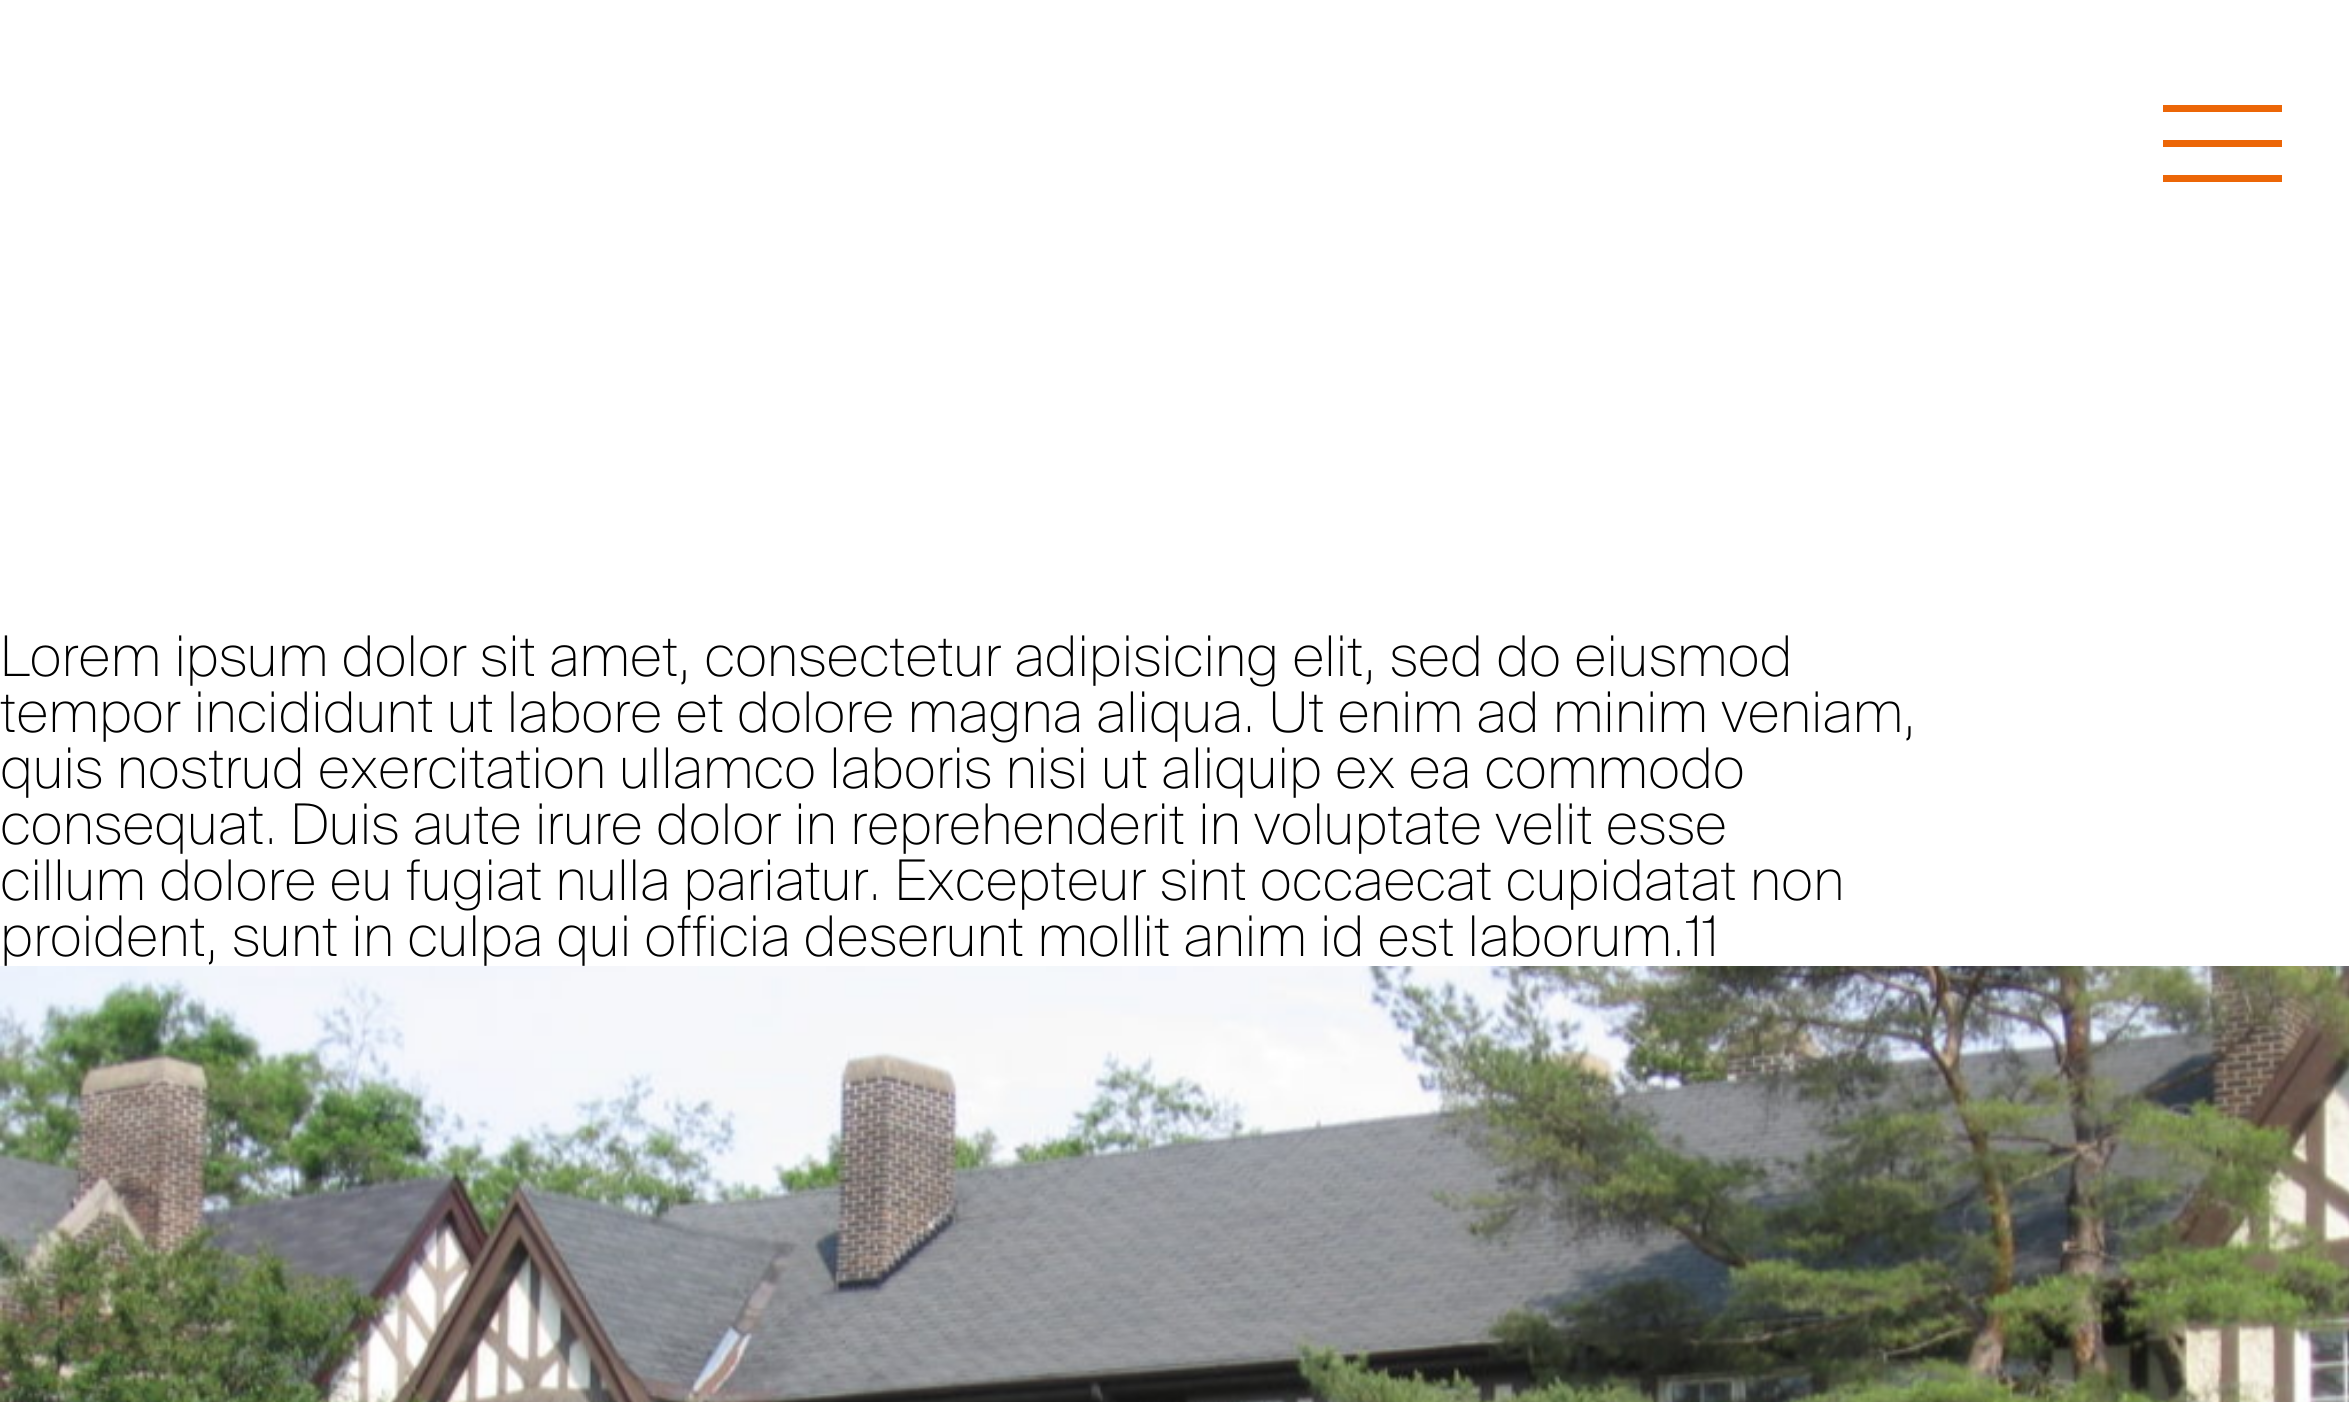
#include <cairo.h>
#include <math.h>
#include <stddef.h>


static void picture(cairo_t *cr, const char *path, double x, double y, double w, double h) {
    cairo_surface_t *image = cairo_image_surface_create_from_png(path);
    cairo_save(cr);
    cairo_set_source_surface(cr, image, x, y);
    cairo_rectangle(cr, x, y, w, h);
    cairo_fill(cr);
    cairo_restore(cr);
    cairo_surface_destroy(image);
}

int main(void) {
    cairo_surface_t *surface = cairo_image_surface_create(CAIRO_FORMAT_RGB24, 2349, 1402);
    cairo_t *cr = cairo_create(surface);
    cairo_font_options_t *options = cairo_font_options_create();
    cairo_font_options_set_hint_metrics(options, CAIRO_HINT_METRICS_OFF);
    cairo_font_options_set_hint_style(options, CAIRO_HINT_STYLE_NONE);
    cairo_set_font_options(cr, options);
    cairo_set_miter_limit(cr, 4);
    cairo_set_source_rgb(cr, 1, 1, 1);
    cairo_paint(cr);
    cairo_set_source_rgb(cr, 0.922, 0.4, 0.031);
    cairo_rectangle(cr, 2163, 140, 119, 7);
    cairo_fill(cr);
    cairo_rectangle(cr, 2163, 105, 119, 7);
    cairo_fill(cr);
    cairo_rectangle(cr, 2163, 175, 119, 7);
    cairo_fill(cr);
    cairo_select_font_face(cr, "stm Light", CAIRO_FONT_SLANT_NORMAL, CAIRO_FONT_WEIGHT_NORMAL);
    cairo_set_font_size(cr, 56);
    cairo_set_source_rgb(cr, 0, 0, 0);
    cairo_move_to(cr, 0, 676);
    cairo_show_text(cr, "Lorem ipsum dolor sit amet, consectetur adipisicing elit, sed do eiusmod");
    cairo_move_to(cr, 0, 732);
    cairo_show_text(cr, "tempor incididunt ut labore et dolore magna aliqua. Ut enim ad minim veniam,");
    cairo_move_to(cr, 0, 788);
    cairo_show_text(cr, "quis nostrud exercitation ullamco laboris nisi ut aliquip ex ea commodo");
    cairo_move_to(cr, 0, 844);
    cairo_show_text(cr, "consequat. Duis aute irure dolor in reprehenderit in voluptate velit esse");
    cairo_move_to(cr, 0, 900);
    cairo_show_text(cr, "cillum dolore eu fugiat nulla pariatur. Excepteur sint occaecat cupidatat non");
    cairo_move_to(cr, 0, 956);
    cairo_show_text(cr, "proident, sunt in culpa qui officia deserunt mollit anim id est laborum.11");
    picture(cr, "img1.png", 0, 966, 2349, 436);
    cairo_surface_write_to_png(surface, "page.png");
    cairo_font_options_destroy(options);
    cairo_destroy(cr);
    cairo_surface_destroy(surface);
    return 0;
}
